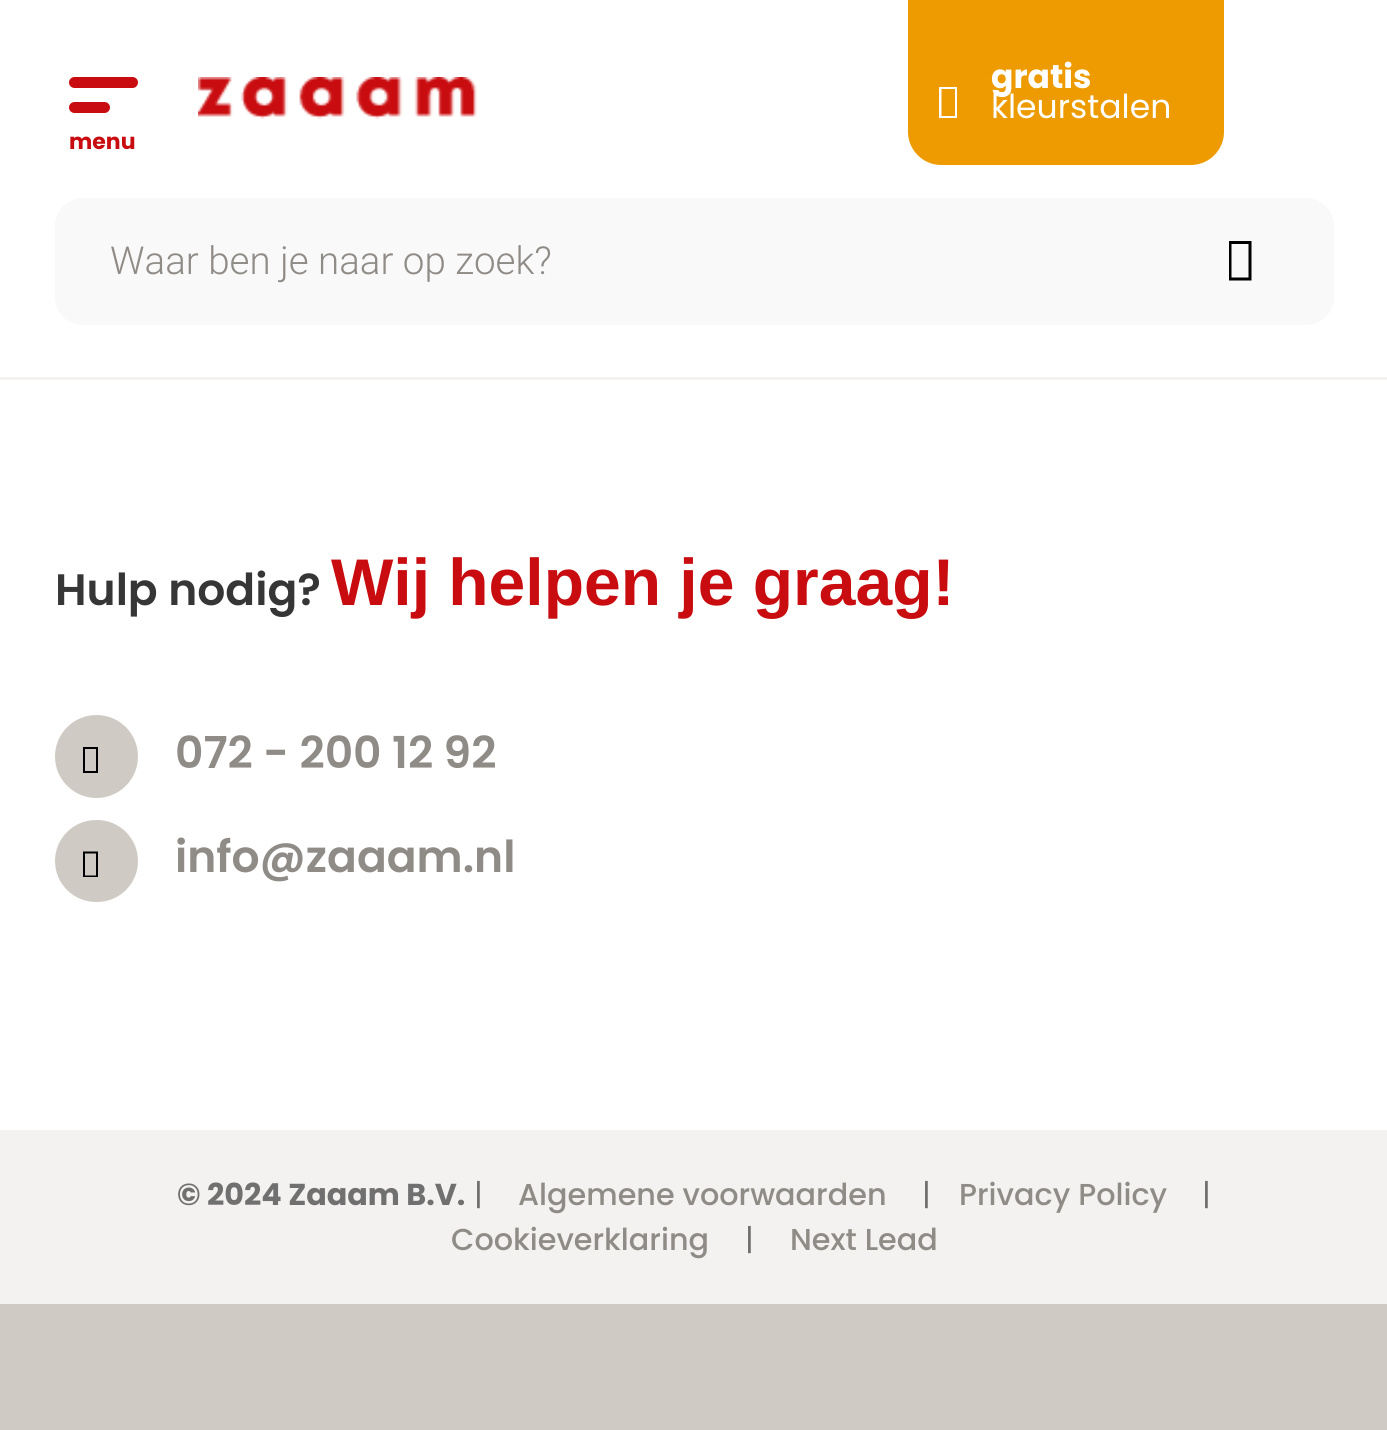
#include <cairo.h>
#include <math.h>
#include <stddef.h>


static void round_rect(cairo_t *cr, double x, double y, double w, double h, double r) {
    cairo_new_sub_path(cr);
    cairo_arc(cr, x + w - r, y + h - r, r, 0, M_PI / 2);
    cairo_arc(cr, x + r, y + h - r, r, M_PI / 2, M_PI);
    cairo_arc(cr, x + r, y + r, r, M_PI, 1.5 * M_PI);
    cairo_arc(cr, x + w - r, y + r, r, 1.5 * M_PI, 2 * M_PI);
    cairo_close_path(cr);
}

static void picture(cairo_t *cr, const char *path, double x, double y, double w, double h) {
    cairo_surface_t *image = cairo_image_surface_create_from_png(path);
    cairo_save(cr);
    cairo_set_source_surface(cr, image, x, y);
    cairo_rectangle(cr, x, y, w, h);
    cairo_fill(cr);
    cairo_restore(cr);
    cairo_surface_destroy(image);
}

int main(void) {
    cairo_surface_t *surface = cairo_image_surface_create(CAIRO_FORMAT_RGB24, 1387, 1430);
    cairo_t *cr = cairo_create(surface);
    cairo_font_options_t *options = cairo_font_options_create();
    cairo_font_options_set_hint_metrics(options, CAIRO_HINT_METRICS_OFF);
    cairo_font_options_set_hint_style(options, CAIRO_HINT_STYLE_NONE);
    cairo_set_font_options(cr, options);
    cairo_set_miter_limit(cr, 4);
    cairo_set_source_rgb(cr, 1, 1, 1);
    cairo_paint(cr);
    cairo_set_source_rgb(cr, 0.929, 0.608, 0);
    cairo_new_path(cr);
    cairo_move_to(cr, 908, 0);
    cairo_line_to(cr, 1224, 0);
    cairo_line_to(cr, 1224, 132);
    cairo_curve_to(cr, 1224, 150, 1209, 165, 1191, 165);
    cairo_line_to(cr, 941, 165);
    cairo_curve_to(cr, 923, 165, 908, 150, 908, 132);
    cairo_close_path(cr);
    cairo_fill(cr);
    cairo_set_source_rgb(cr, 1, 1, 1);
    cairo_new_path(cr);
    cairo_move_to(cr, 939, 118);
    cairo_line_to(cr, 939, 87);
    cairo_line_to(cr, 957, 87);
    cairo_line_to(cr, 957, 118);
    cairo_close_path(cr);
    cairo_move_to(cr, 941.5, 116);
    cairo_line_to(cr, 955, 116);
    cairo_line_to(cr, 955, 89);
    cairo_line_to(cr, 941.5, 89);
    cairo_close_path(cr);
    cairo_fill(cr);
    cairo_select_font_face(cr, "Poppins", CAIRO_FONT_SLANT_NORMAL, CAIRO_FONT_WEIGHT_BOLD);
    cairo_set_font_size(cr, 33);
    cairo_move_to(cr, 991, 88);
    cairo_show_text(cr, "gratis");
    cairo_select_font_face(cr, "Poppins", CAIRO_FONT_SLANT_NORMAL, CAIRO_FONT_WEIGHT_NORMAL);
    cairo_move_to(cr, 991, 118);
    cairo_show_text(cr, "kleurstalen");
    picture(cr, "img1.png", 198, 77, 279, 42);
    cairo_set_source_rgb(cr, 0.788, 0.047, 0.059);
    round_rect(cr, 69, 77, 69, 11, 5.5);
    cairo_fill(cr);
    round_rect(cr, 69, 102, 41, 11, 5.5);
    cairo_fill(cr);
    cairo_select_font_face(cr, "Poppins", CAIRO_FONT_SLANT_NORMAL, CAIRO_FONT_WEIGHT_BOLD);
    cairo_set_font_size(cr, 22);
    cairo_move_to(cr, 69, 149);
    cairo_show_text(cr, "menu");
    cairo_set_source_rgb(cr, 0.973, 0.973, 0.973);
    round_rect(cr, 55, 198, 1279, 127, 28);
    cairo_fill(cr);
    cairo_select_font_face(cr, "Roboto Light", CAIRO_FONT_SLANT_NORMAL, CAIRO_FONT_WEIGHT_NORMAL);
    cairo_set_font_size(cr, 38.5);
    cairo_set_source_rgb(cr, 0.561, 0.545, 0.525);
    cairo_move_to(cr, 110, 274);
    cairo_show_text(cr, "Waar ben je naar op zoek?");
    cairo_set_source_rgb(cr, 0, 0, 0);
    cairo_new_path(cr);
    cairo_move_to(cr, 1229, 280.5);
    cairo_line_to(cr, 1229, 241);
    cairo_line_to(cr, 1251.5, 241);
    cairo_line_to(cr, 1251.5, 280.5);
    cairo_close_path(cr);
    cairo_move_to(cr, 1231.5, 277.5);
    cairo_line_to(cr, 1248.5, 277.5);
    cairo_line_to(cr, 1248.5, 244);
    cairo_line_to(cr, 1231.5, 244);
    cairo_close_path(cr);
    cairo_fill(cr);
    cairo_set_source_rgb(cr, 0.953, 0.949, 0.941);
    cairo_rectangle(cr, 0, 377, 1387, 3);
    cairo_fill(cr);
    cairo_select_font_face(cr, "Poppins SemiBold", CAIRO_FONT_SLANT_NORMAL, CAIRO_FONT_WEIGHT_NORMAL);
    cairo_set_font_size(cr, 44);
    cairo_set_source_rgb(cr, 0.212, 0.212, 0.212);
    cairo_move_to(cr, 55, 605);
    cairo_show_text(cr, "Hulp nodig?");
    cairo_select_font_face(cr, "Liberation Sans", CAIRO_FONT_SLANT_NORMAL, CAIRO_FONT_WEIGHT_BOLD);
    cairo_set_font_size(cr, 66);
    cairo_set_source_rgb(cr, 0.788, 0.047, 0.059);
    cairo_move_to(cr, 331, 605);
    cairo_show_text(cr, "Wij helpen je graag!");
    cairo_set_source_rgb(cr, 0.812, 0.796, 0.769);
    cairo_new_path(cr);
    cairo_arc(cr, 96.5, 756.5, 41.5, 0, 2 * M_PI);
    cairo_fill(cr);
    cairo_set_source_rgb(cr, 0, 0, 0);
    cairo_new_path(cr);
    cairo_move_to(cr, 83, 773);
    cairo_line_to(cr, 83, 747);
    cairo_line_to(cr, 98, 747);
    cairo_line_to(cr, 98, 773);
    cairo_close_path(cr);
    cairo_move_to(cr, 85, 771);
    cairo_line_to(cr, 96, 771);
    cairo_line_to(cr, 96, 749);
    cairo_line_to(cr, 85, 749);
    cairo_close_path(cr);
    cairo_fill(cr);
    cairo_select_font_face(cr, "Poppins SemiBold", CAIRO_FONT_SLANT_NORMAL, CAIRO_FONT_WEIGHT_NORMAL);
    cairo_set_font_size(cr, 44);
    cairo_set_source_rgb(cr, 0.561, 0.545, 0.525);
    cairo_move_to(cr, 175, 768);
    cairo_show_text(cr, "072 - 200 12 92");
    cairo_set_source_rgb(cr, 0.812, 0.796, 0.769);
    round_rect(cr, 55, 820, 83, 82, 41);
    cairo_fill(cr);
    cairo_set_source_rgb(cr, 0, 0, 0);
    cairo_new_path(cr);
    cairo_move_to(cr, 83, 877);
    cairo_line_to(cr, 83, 851.5);
    cairo_line_to(cr, 98, 851.5);
    cairo_line_to(cr, 98, 877);
    cairo_close_path(cr);
    cairo_move_to(cr, 85, 875.5);
    cairo_line_to(cr, 96, 875.5);
    cairo_line_to(cr, 96, 853.5);
    cairo_line_to(cr, 85, 853.5);
    cairo_close_path(cr);
    cairo_fill(cr);
    cairo_set_source_rgb(cr, 0.561, 0.545, 0.525);
    cairo_move_to(cr, 175, 872);
    cairo_show_text(cr, "info@zaaam.nl");
    cairo_set_source_rgb(cr, 0.953, 0.949, 0.941);
    cairo_rectangle(cr, 0, 1130, 1387, 174);
    cairo_fill(cr);
    cairo_set_source_rgb(cr, 0.812, 0.796, 0.769);
    cairo_rectangle(cr, 0, 1304, 1387, 126);
    cairo_fill(cr);
    cairo_select_font_face(cr, "Poppins", CAIRO_FONT_SLANT_NORMAL, CAIRO_FONT_WEIGHT_BOLD);
    cairo_set_font_size(cr, 30.25);
    cairo_set_source_rgb(cr, 0.439, 0.439, 0.439);
    cairo_move_to(cr, 177, 1205);
    cairo_show_text(cr, "© 2024 Zaaam B.V.");
    cairo_select_font_face(cr, "Poppins", CAIRO_FONT_SLANT_NORMAL, CAIRO_FONT_WEIGHT_NORMAL);
    cairo_move_to(cr, 474, 1205);
    cairo_show_text(cr, "|");
    cairo_select_font_face(cr, "Poppins Medium", CAIRO_FONT_SLANT_NORMAL, CAIRO_FONT_WEIGHT_NORMAL);
    cairo_set_source_rgb(cr, 0.561, 0.545, 0.525);
    cairo_move_to(cr, 518, 1205);
    cairo_show_text(cr, "Algemene voorwaarden");
    cairo_select_font_face(cr, "Poppins", CAIRO_FONT_SLANT_NORMAL, CAIRO_FONT_WEIGHT_NORMAL);
    cairo_set_source_rgb(cr, 0.439, 0.439, 0.439);
    cairo_move_to(cr, 922, 1205);
    cairo_show_text(cr, "|");
    cairo_select_font_face(cr, "Poppins Medium", CAIRO_FONT_SLANT_NORMAL, CAIRO_FONT_WEIGHT_NORMAL);
    cairo_set_source_rgb(cr, 0.561, 0.545, 0.525);
    cairo_move_to(cr, 959, 1205);
    cairo_show_text(cr, "Privacy Policy");
    cairo_select_font_face(cr, "Poppins", CAIRO_FONT_SLANT_NORMAL, CAIRO_FONT_WEIGHT_NORMAL);
    cairo_set_source_rgb(cr, 0.439, 0.439, 0.439);
    cairo_move_to(cr, 1202, 1205);
    cairo_show_text(cr, "|");
    cairo_select_font_face(cr, "Poppins Medium", CAIRO_FONT_SLANT_NORMAL, CAIRO_FONT_WEIGHT_NORMAL);
    cairo_set_source_rgb(cr, 0.561, 0.545, 0.525);
    cairo_move_to(cr, 451, 1250);
    cairo_show_text(cr, "Cookieverklaring");
    cairo_select_font_face(cr, "Poppins", CAIRO_FONT_SLANT_NORMAL, CAIRO_FONT_WEIGHT_NORMAL);
    cairo_set_source_rgb(cr, 0.439, 0.439, 0.439);
    cairo_move_to(cr, 745, 1250);
    cairo_show_text(cr, "|");
    cairo_select_font_face(cr, "Poppins Medium", CAIRO_FONT_SLANT_NORMAL, CAIRO_FONT_WEIGHT_NORMAL);
    cairo_set_source_rgb(cr, 0.561, 0.545, 0.525);
    cairo_move_to(cr, 790, 1250);
    cairo_show_text(cr, "Next Lead");
    cairo_surface_write_to_png(surface, "page.png");
    cairo_font_options_destroy(options);
    cairo_destroy(cr);
    cairo_surface_destroy(surface);
    return 0;
}
